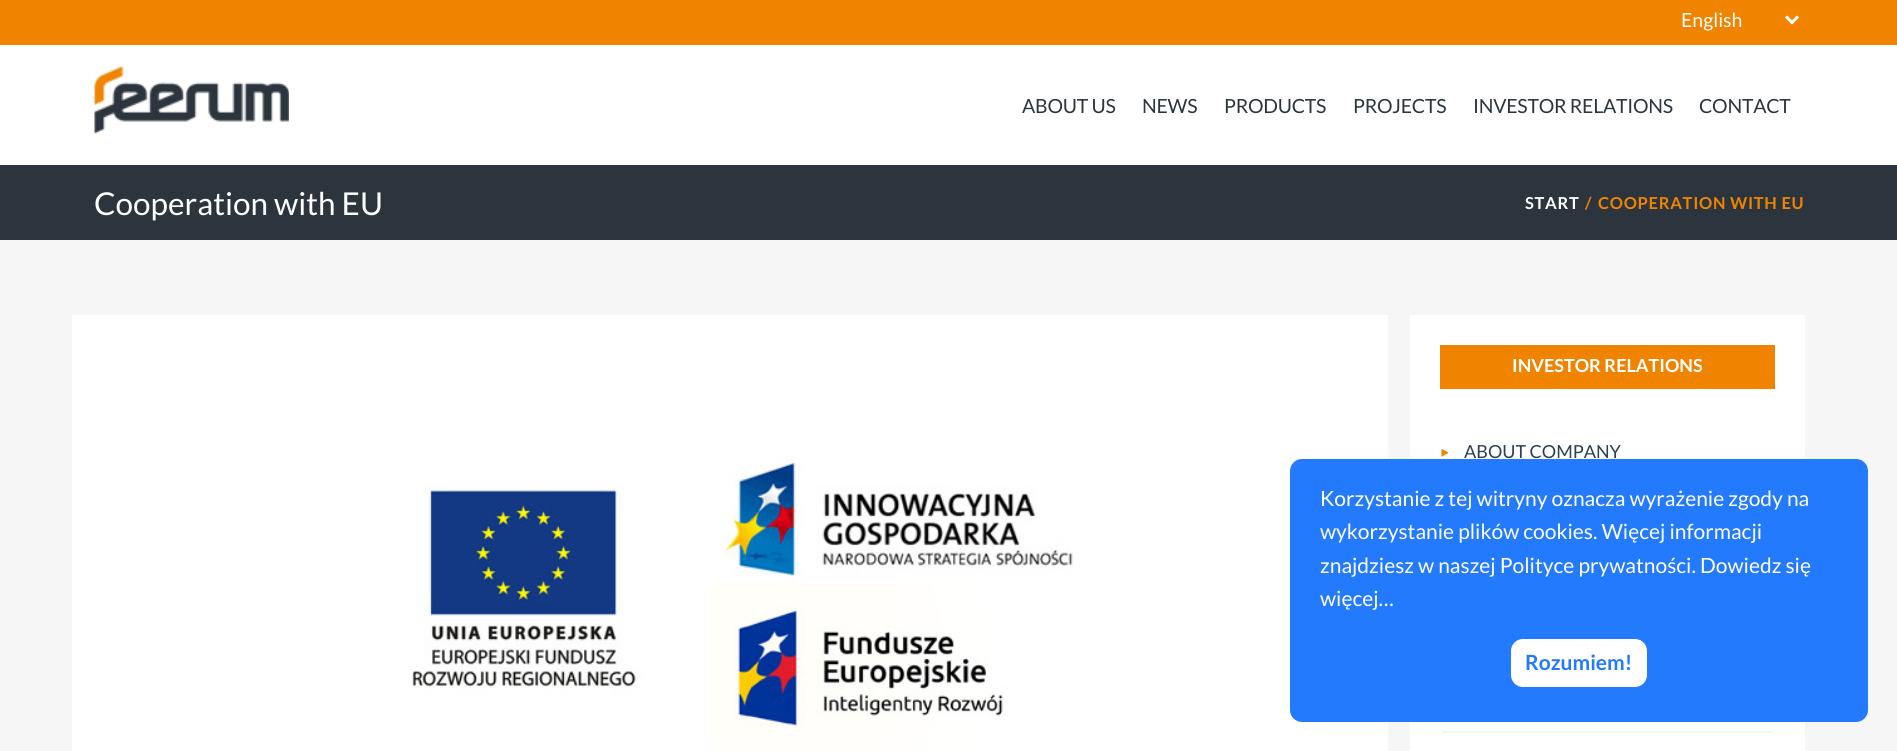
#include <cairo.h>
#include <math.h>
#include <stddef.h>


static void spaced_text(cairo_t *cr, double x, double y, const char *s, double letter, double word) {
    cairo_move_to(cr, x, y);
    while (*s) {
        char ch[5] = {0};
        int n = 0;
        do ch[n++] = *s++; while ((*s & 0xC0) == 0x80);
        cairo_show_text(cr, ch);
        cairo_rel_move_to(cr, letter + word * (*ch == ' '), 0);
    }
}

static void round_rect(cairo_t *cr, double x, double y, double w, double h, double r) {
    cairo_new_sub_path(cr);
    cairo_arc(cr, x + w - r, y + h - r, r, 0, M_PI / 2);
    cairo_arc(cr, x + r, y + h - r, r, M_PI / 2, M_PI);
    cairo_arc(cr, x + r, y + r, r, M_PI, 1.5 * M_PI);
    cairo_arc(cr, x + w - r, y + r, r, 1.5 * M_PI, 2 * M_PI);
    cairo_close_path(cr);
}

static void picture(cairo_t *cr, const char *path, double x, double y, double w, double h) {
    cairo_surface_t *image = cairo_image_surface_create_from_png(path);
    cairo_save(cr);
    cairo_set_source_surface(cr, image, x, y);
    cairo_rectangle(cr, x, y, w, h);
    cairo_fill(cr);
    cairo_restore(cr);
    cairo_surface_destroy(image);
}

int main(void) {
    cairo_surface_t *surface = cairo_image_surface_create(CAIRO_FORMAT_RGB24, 1897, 751);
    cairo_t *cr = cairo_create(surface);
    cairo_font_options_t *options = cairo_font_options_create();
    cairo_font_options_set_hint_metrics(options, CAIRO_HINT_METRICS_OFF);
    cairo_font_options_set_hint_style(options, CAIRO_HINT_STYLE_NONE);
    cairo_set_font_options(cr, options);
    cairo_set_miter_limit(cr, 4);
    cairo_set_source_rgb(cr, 0.173, 0.208, 0.239);
    cairo_paint(cr);
    cairo_set_source_rgb(cr, 1, 1, 1);
    cairo_rectangle(cr, 0, 45, 1897, 120);
    cairo_fill(cr);
    cairo_set_source_rgb(cr, 0.941, 0.514, 0);
    cairo_rectangle(cr, 0, 0, 1897, 45);
    cairo_fill(cr);
    cairo_new_path(cr);
    cairo_move_to(cr, 1786, 16.5);
    cairo_line_to(cr, 1792, 22.5);
    cairo_line_to(cr, 1798, 16.5);
    cairo_set_source_rgb(cr, 1, 1, 1);
    cairo_set_line_width(cr, 3);
    cairo_stroke(cr);
    cairo_select_font_face(cr, "Lato", CAIRO_FONT_SLANT_NORMAL, CAIRO_FONT_WEIGHT_NORMAL);
    cairo_set_font_size(cr, 19.5);
    cairo_move_to(cr, 1681, 27);
    cairo_show_text(cr, "English");
    picture(cr, "img1.png", 94, 65, 195, 69);
    cairo_set_source_rgb(cr, 0.173, 0.208, 0.239);
    spaced_text(cr, 1022, 113, "ABOUT US", -0.25, 0);
    spaced_text(cr, 1142, 113, "NEWS", -0.25, 0);
    spaced_text(cr, 1224, 113, "PRODUCTS", -0.25, 0);
    spaced_text(cr, 1353, 113, "PROJECTS", -0.25, 0);
    spaced_text(cr, 1473, 113, "INVESTOR RELATIONS", -0.25, 0);
    spaced_text(cr, 1699, 113, "CONTACT", -0.25, 0);
    cairo_set_font_size(cr, 31.5);
    cairo_set_source_rgb(cr, 1, 1, 1);
    cairo_move_to(cr, 94, 215);
    cairo_show_text(cr, "Cooperation with EU");
    cairo_select_font_face(cr, "Lato", CAIRO_FONT_SLANT_NORMAL, CAIRO_FONT_WEIGHT_BOLD);
    cairo_set_font_size(cr, 16.5);
    spaced_text(cr, 1525, 209, "START", 0.7, 0);
    cairo_set_source_rgb(cr, 0.941, 0.514, 0);
    spaced_text(cr, 1585, 209, "/", 0.7, 0);
    spaced_text(cr, 1598, 209, "COOPERATION WITH EU", 0.7, 0);
    cairo_set_source_rgb(cr, 0.961, 0.961, 0.961);
    cairo_rectangle(cr, 0, 240, 1897, 511);
    cairo_fill(cr);
    cairo_set_source_rgb(cr, 1, 1, 1);
    cairo_rectangle(cr, 72, 315, 1316, 436);
    cairo_fill(cr);
    picture(cr, "img2.png", 412, 456, 663, 295);
    cairo_rectangle(cr, 1410, 315, 395, 436);
    cairo_fill(cr);
    cairo_set_source_rgb(cr, 0.941, 0.514, 0);
    cairo_rectangle(cr, 1440, 345, 335, 44);
    cairo_fill(cr);
    cairo_set_font_size(cr, 18);
    cairo_set_source_rgb(cr, 1, 1, 1);
    cairo_move_to(cr, 1512, 372);
    cairo_show_text(cr, "INVESTOR RELATIONS");
    picture(cr, "img3.png", 1441, 449, 8, 8);
    cairo_select_font_face(cr, "Lato", CAIRO_FONT_SLANT_NORMAL, CAIRO_FONT_WEIGHT_NORMAL);
    cairo_set_source_rgb(cr, 0.176, 0.243, 0.322);
    cairo_move_to(cr, 1464, 458);
    cairo_show_text(cr, "ABOUT COMPANY");
    cairo_set_source_rgb(cr, 0.961, 0.961, 0.961);
    cairo_rectangle(cr, 1442, 731, 331, 2);
    cairo_fill(cr);
    cairo_set_source_rgb(cr, 0.137, 0.478, 0.988);
    round_rect(cr, 1290, 459, 578, 263, 12);
    cairo_fill(cr);
    cairo_set_font_size(cr, 21);
    cairo_set_source_rgb(cr, 1, 1, 1);
    cairo_move_to(cr, 1320, 506);
    cairo_show_text(cr, "Korzystanie z tej witryny oznacza wyrażenie zgody na");
    cairo_move_to(cr, 1320, 539);
    cairo_show_text(cr, "wykorzystanie plików cookies. Więcej informacji");
    cairo_move_to(cr, 1320, 573);
    cairo_show_text(cr, "znajdziesz w naszej Polityce prywatności. Dowiedz się");
    cairo_move_to(cr, 1320, 606);
    cairo_show_text(cr, "więcej…");
    round_rect(cr, 1511, 639, 136, 48, 12);
    cairo_fill(cr);
    cairo_select_font_face(cr, "Lato", CAIRO_FONT_SLANT_NORMAL, CAIRO_FONT_WEIGHT_BOLD);
    cairo_set_source_rgb(cr, 0.137, 0.478, 0.988);
    cairo_move_to(cr, 1525, 670);
    cairo_show_text(cr, "Rozumiem!");
    cairo_surface_write_to_png(surface, "page.png");
    cairo_font_options_destroy(options);
    cairo_destroy(cr);
    cairo_surface_destroy(surface);
    return 0;
}
